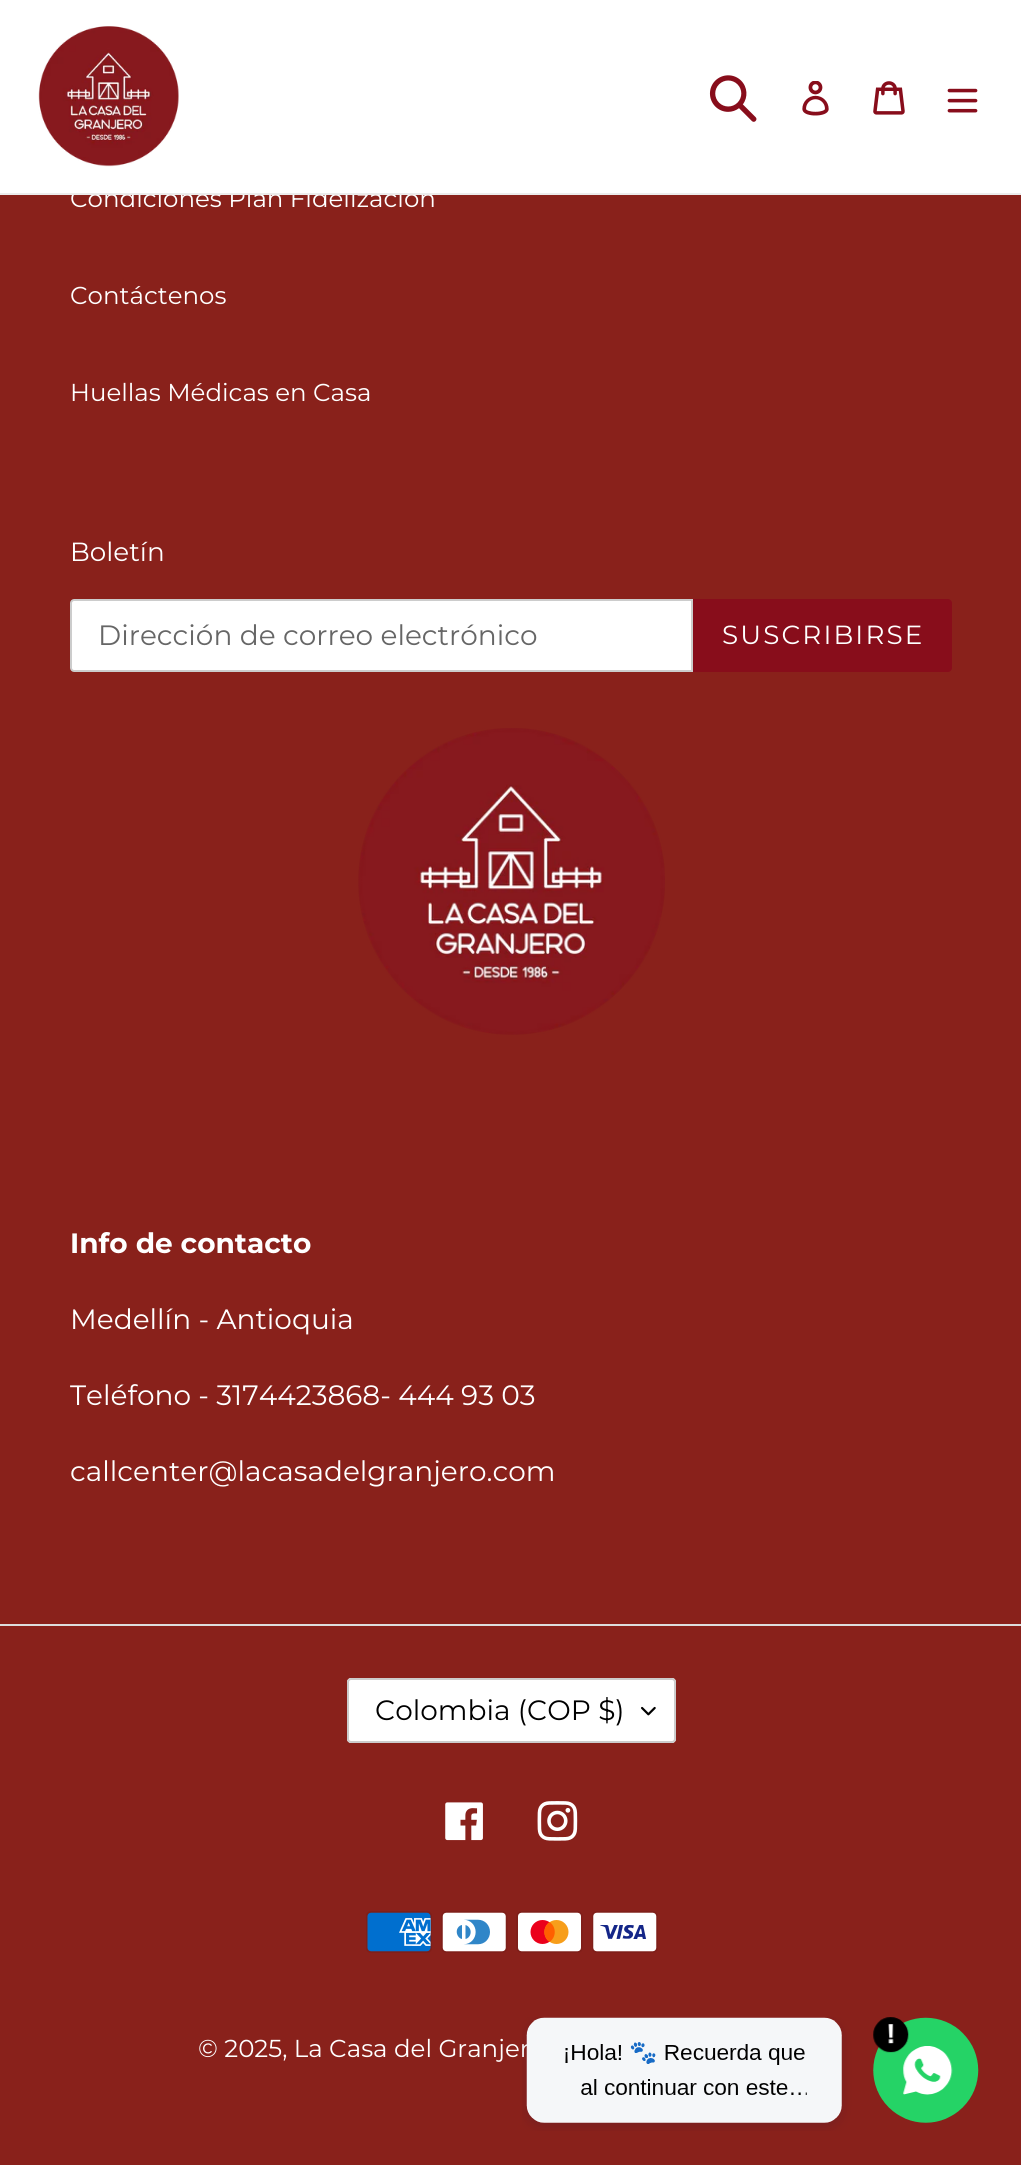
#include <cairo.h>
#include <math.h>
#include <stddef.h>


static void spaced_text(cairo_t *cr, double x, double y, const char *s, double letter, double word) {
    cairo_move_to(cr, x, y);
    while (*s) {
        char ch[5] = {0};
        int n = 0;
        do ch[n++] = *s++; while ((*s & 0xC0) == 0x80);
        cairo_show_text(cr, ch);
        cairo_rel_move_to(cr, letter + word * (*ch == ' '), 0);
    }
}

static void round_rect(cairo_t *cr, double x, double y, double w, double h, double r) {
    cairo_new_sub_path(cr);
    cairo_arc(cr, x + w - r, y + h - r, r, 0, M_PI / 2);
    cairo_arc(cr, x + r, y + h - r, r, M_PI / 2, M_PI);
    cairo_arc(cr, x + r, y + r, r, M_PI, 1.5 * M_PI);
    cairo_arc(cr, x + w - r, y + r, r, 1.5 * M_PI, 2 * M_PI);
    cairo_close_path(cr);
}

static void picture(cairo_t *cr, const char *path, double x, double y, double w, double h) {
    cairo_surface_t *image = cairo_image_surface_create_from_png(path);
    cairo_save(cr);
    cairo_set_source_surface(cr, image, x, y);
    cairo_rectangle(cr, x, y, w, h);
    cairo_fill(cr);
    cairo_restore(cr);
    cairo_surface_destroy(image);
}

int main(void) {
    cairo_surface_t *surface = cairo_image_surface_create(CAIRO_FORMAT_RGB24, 1021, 2165);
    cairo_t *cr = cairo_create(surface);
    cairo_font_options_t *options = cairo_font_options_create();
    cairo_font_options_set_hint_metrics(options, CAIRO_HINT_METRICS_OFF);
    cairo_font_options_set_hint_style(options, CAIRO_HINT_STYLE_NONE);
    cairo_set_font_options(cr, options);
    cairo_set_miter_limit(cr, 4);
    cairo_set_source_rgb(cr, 0.537, 0.129, 0.106);
    cairo_paint(cr);
    cairo_set_source_rgb(cr, 1, 1, 1);
    cairo_rectangle(cr, 0, 0, 1021, 193);
    cairo_fill(cr);
    cairo_select_font_face(cr, "Montserrat Thin", CAIRO_FONT_SLANT_NORMAL, CAIRO_FONT_WEIGHT_NORMAL);
    cairo_set_font_size(cr, 24.5);
    cairo_move_to(cr, 70, 207);
    cairo_show_text(cr, "Condiciones Plan Fidelización");
    cairo_set_source_rgb(cr, 0.922, 0.922, 0.922);
    cairo_rectangle(cr, 0, 193, 1021, 2);
    cairo_fill(cr);
    picture(cr, "img1.png", 38, 26, 141, 141);
    picture(cr, "img2.png", 709, 75, 48, 47);
    picture(cr, "img3.png", 802, 81, 27, 35);
    picture(cr, "img4.png", 873, 81, 32, 34);
    picture(cr, "img5.png", 947, 88, 31, 25);
    cairo_set_source_rgb(cr, 1, 1, 1);
    cairo_move_to(cr, 70, 304);
    cairo_show_text(cr, "Contáctenos");
    cairo_move_to(cr, 70, 401);
    cairo_show_text(cr, "Huellas Médicas en Casa");
    cairo_set_font_size(cr, 26.25);
    cairo_move_to(cr, 70, 561);
    cairo_show_text(cr, "Boletín");
    cairo_new_path(cr);
    cairo_move_to(cr, 74, 600);
    cairo_line_to(cr, 692, 600);
    cairo_line_to(cr, 692, 671);
    cairo_line_to(cr, 74, 671);
    cairo_curve_to(cr, 72.5, 671, 71, 669.5, 71, 668);
    cairo_line_to(cr, 71, 603);
    cairo_curve_to(cr, 71, 601.5, 72.5, 600, 74, 600);
    cairo_close_path(cr);
    cairo_fill_preserve(cr);
    cairo_set_source_rgb(cr, 0.8, 0.8, 0.8);
    cairo_stroke(cr);
    cairo_set_font_size(cr, 28);
    cairo_set_source_rgb(cr, 0.4, 0.4, 0.4);
    cairo_move_to(cr, 98, 645);
    cairo_show_text(cr, "Dirección de correo electrónico");
    cairo_set_source_rgb(cr, 0.533, 0.051, 0.106);
    cairo_new_path(cr);
    cairo_move_to(cr, 693, 599);
    cairo_line_to(cr, 948, 599);
    cairo_curve_to(cr, 950, 599, 952, 601, 952, 603);
    cairo_line_to(cr, 952, 668);
    cairo_curve_to(cr, 952, 670, 950, 672, 948, 672);
    cairo_line_to(cr, 693, 672);
    cairo_close_path(cr);
    cairo_fill(cr);
    cairo_set_font_size(cr, 26.25);
    cairo_set_source_rgb(cr, 1, 1, 1);
    spaced_text(cr, 722, 644, "SUSCRIBIRSE", 2.1, 0);
    picture(cr, "img6.png", 358, 728, 307, 307);
    cairo_select_font_face(cr, "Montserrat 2 Thin", CAIRO_FONT_SLANT_NORMAL, CAIRO_FONT_WEIGHT_NORMAL);
    cairo_set_font_size(cr, 28);
    cairo_move_to(cr, 70, 1253);
    cairo_show_text(cr, "Info de contacto");
    cairo_select_font_face(cr, "Montserrat Thin", CAIRO_FONT_SLANT_NORMAL, CAIRO_FONT_WEIGHT_NORMAL);
    cairo_move_to(cr, 70, 1329);
    cairo_show_text(cr, "Medellín - Antioquia");
    cairo_move_to(cr, 70, 1405);
    cairo_show_text(cr, "Teléfono - 3174423868- 444 93 03");
    cairo_move_to(cr, 70, 1481);
    cairo_show_text(cr, "callcenter@lacasadelgranjero.com");
    cairo_set_source_rgb(cr, 0.867, 0.867, 0.867);
    cairo_rectangle(cr, 0, 1624, 1021, 2);
    cairo_fill(cr);
    cairo_set_source_rgb(cr, 1, 1, 1);
    round_rect(cr, 347, 1678, 329, 65, 4);
    cairo_fill(cr);
    picture(cr, "img7.png", 641, 1706, 15, 10);
    round_rect(cr, 348, 1679, 327, 63, 3);
    cairo_set_source_rgb(cr, 0.8, 0.8, 0.8);
    cairo_stroke(cr);
    cairo_set_source_rgb(cr, 0, 0, 0);
    cairo_move_to(cr, 375, 1720);
    cairo_show_text(cr, "Colombia (COP $)");
    picture(cr, "img8.png", 445, 1802, 38, 39);
    picture(cr, "img9.png", 537, 1801, 41, 40);
    picture(cr, "img10.png", 366, 1911, 66, 42);
    picture(cr, "img11.png", 441, 1911, 67, 42);
    picture(cr, "img12.png", 516, 1911, 67, 42);
    picture(cr, "img13.png", 592, 1911, 66, 42);
    cairo_set_font_size(cr, 24.5);
    cairo_set_source_rgb(cr, 1, 1, 1);
    cairo_move_to(cr, 198, 2057);
    cairo_show_text(cr, "© 2025, La Casa del Granjer");
    picture(cr, "img14.png", 522, 2017, 457, 114);
    cairo_surface_write_to_png(surface, "page.png");
    cairo_font_options_destroy(options);
    cairo_destroy(cr);
    cairo_surface_destroy(surface);
    return 0;
}
